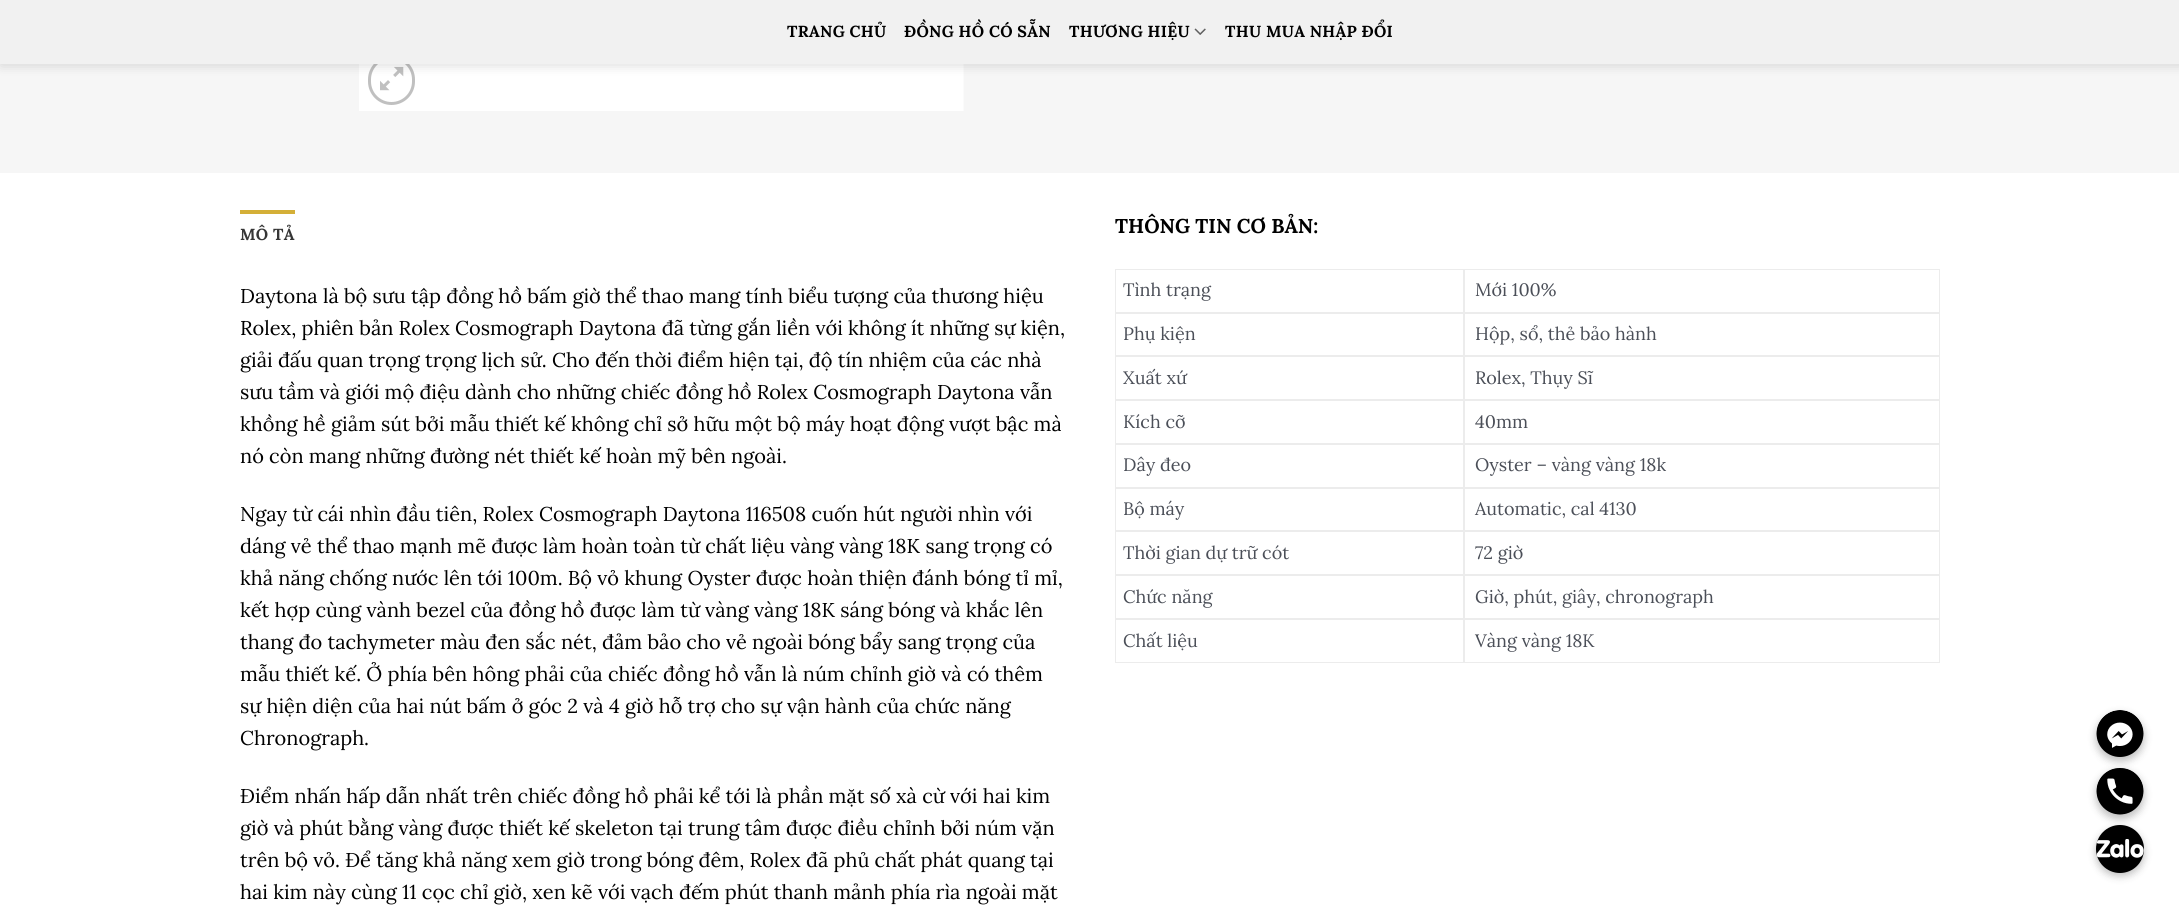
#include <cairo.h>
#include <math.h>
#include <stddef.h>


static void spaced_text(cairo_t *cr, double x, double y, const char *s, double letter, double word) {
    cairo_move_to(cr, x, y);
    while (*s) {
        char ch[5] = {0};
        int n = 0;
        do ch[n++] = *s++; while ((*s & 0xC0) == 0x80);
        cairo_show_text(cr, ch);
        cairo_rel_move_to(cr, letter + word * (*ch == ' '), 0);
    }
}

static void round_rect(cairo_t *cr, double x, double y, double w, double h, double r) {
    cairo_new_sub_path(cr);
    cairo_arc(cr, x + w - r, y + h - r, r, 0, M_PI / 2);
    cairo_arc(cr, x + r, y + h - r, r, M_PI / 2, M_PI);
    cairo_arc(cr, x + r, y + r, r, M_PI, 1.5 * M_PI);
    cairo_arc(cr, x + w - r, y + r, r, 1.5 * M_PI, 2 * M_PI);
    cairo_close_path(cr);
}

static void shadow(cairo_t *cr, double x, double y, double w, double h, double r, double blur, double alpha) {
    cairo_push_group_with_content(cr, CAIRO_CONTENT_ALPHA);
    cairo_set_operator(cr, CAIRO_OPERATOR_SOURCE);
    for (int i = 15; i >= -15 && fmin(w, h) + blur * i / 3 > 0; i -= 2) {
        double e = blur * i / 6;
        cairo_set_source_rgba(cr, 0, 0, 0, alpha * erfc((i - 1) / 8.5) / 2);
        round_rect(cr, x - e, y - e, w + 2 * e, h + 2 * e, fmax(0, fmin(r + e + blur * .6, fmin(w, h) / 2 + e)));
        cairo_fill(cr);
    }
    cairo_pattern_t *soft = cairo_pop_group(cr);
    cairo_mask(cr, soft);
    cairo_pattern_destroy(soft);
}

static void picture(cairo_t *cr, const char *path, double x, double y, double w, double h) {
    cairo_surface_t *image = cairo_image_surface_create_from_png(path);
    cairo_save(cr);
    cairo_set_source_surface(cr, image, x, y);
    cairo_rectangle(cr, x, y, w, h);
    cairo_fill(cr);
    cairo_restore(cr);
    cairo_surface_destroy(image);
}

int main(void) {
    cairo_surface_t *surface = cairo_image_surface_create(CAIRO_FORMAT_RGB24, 2179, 908);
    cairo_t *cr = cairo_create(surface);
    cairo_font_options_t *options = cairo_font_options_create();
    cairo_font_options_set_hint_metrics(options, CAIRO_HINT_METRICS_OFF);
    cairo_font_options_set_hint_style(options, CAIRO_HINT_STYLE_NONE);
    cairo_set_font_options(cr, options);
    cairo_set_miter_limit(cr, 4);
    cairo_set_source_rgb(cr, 0.961, 0.961, 0.961);
    cairo_paint(cr);
    picture(cr, "img3.png", 359, 64, 605, 47);
    round_rect(cr, 369.5, 57.5, 44, 46, 22);
    cairo_set_source_rgb(cr, 0.753, 0.753, 0.753);
    cairo_set_line_width(cr, 3);
    cairo_stroke(cr);
    picture(cr, "img2.png", 380, 66, 24, 25);
    cairo_set_source_rgb(cr, 0, 0, 0);
    shadow(cr, 1, 1, 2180, 64, 0, 6, 0.15);
    cairo_set_source_rgb(cr, 0.945, 0.945, 0.945);
    cairo_rectangle(cr, 0, 0, 2179, 64);
    cairo_fill(cr);
    cairo_select_font_face(cr, "Lora", CAIRO_FONT_SLANT_NORMAL, CAIRO_FONT_WEIGHT_BOLD);
    cairo_set_font_size(cr, 16);
    cairo_set_source_rgb(cr, 0, 0, 0);
    spaced_text(cr, 787, 37, "TRANG CHỦ", 0.3, 0);
    spaced_text(cr, 904, 37, "ĐỒNG HỒ CÓ SẴN", 0.3, 0);
    spaced_text(cr, 1069, 37, "THƯƠNG HIỆU", 0.3, 0);
    picture(cr, "img1.png", 1194, 28, 12, 7);
    spaced_text(cr, 1225, 37, "THU MUA NHẬP ĐỔI", 0.3, 0);
    cairo_set_source_rgb(cr, 1, 1, 1);
    cairo_rectangle(cr, 0, 173, 2179, 735);
    cairo_fill(cr);
    cairo_set_source_rgb(cr, 0.831, 0.686, 0.216);
    cairo_rectangle(cr, 240, 210, 55, 4);
    cairo_fill(cr);
    cairo_set_source_rgb(cr, 0.212, 0.212, 0.212);
    spaced_text(cr, 240, 240, "MÔ TẢ", 0.3, 0);
    cairo_select_font_face(cr, "Lora", CAIRO_FONT_SLANT_NORMAL, CAIRO_FONT_WEIGHT_NORMAL);
    cairo_set_font_size(cr, 20);
    cairo_set_source_rgb(cr, 0, 0, 0);
    cairo_move_to(cr, 240, 303);
    cairo_show_text(cr, "Daytona là bộ sưu tập đồng hồ bấm giờ thể thao mang tính biểu tượng của thương hiệu");
    cairo_move_to(cr, 240, 335);
    cairo_show_text(cr, "Rolex, phiên bản Rolex Cosmograph Daytona đã từng gắn liền với không ít những sự kiện,");
    cairo_move_to(cr, 240, 367);
    cairo_show_text(cr, "giải đấu quan trọng trọng lịch sử. Cho đến thời điểm hiện tại, độ tín nhiệm của các nhà");
    cairo_move_to(cr, 240, 399);
    cairo_show_text(cr, "sưu tầm và giới mộ điệu dành cho những chiếc đồng hồ Rolex Cosmograph Daytona vẫn");
    cairo_move_to(cr, 240, 431);
    cairo_show_text(cr, "khồng hề giảm sút bởi mẫu thiết kế không chỉ sở hữu một bộ máy hoạt động vượt bậc mà");
    cairo_move_to(cr, 240, 463);
    cairo_show_text(cr, "nó còn mang những đường nét thiết kế hoàn mỹ bên ngoài.");
    cairo_move_to(cr, 240, 521);
    cairo_show_text(cr, "Ngay từ cái nhìn đầu tiên, Rolex Cosmograph Daytona 116508 cuốn hút người nhìn với");
    cairo_move_to(cr, 240, 553);
    cairo_show_text(cr, "dáng vẻ thể thao mạnh mẽ được làm hoàn toàn từ chất liệu vàng vàng 18K sang trọng có");
    cairo_move_to(cr, 240, 585);
    cairo_show_text(cr, "khả năng chống nước lên tới 100m. Bộ vỏ khung Oyster được hoàn thiện đánh bóng tỉ mỉ,");
    cairo_move_to(cr, 240, 617);
    cairo_show_text(cr, "kết hợp cùng vành bezel của đồng hồ được làm từ vàng vàng 18K sáng bóng và khắc lên");
    cairo_move_to(cr, 240, 649);
    cairo_show_text(cr, "thang đo tachymeter màu đen sắc nét, đảm bảo cho vẻ ngoài bóng bẩy sang trọng của");
    cairo_move_to(cr, 240, 681);
    cairo_show_text(cr, "mẫu thiết kế. Ở phía bên hông phải của chiếc đồng hồ vẫn là núm chỉnh giờ và có thêm");
    cairo_move_to(cr, 240, 713);
    cairo_show_text(cr, "sự hiện diện của hai nút bấm ở góc 2 và 4 giờ hỗ trợ cho sự vận hành của chức năng");
    cairo_move_to(cr, 240, 745);
    cairo_show_text(cr, "Chronograph.");
    cairo_move_to(cr, 240, 803);
    cairo_show_text(cr, "Điểm nhấn hấp dẫn nhất trên chiếc đồng hồ phải kể tới là phần mặt số xà cừ với hai kim");
    cairo_move_to(cr, 240, 835);
    cairo_show_text(cr, "giờ và phút bằng vàng được thiết kế skeleton tại trung tâm được điều chỉnh bởi núm vặn");
    cairo_move_to(cr, 240, 867);
    cairo_show_text(cr, "trên bộ vỏ. Để tăng khả năng xem giờ trong bóng đêm, Rolex đã phủ chất phát quang tại");
    cairo_move_to(cr, 240, 899);
    cairo_show_text(cr, "hai kim này cùng 11 cọc chỉ giờ, xen kẽ với vạch đếm phút thanh mảnh phía rìa ngoài mặt");
    cairo_select_font_face(cr, "Lora", CAIRO_FONT_SLANT_NORMAL, CAIRO_FONT_WEIGHT_BOLD);
    cairo_move_to(cr, 1115, 233);
    cairo_show_text(cr, "THÔNG TIN CƠ BẢN:");
    cairo_rectangle(cr, 1115.5, 269.5, 348, 43);
    cairo_set_source_rgb(cr, 0.925, 0.925, 0.925);
    cairo_set_line_width(cr, 1);
    cairo_stroke(cr);
    cairo_select_font_face(cr, "Lora", CAIRO_FONT_SLANT_NORMAL, CAIRO_FONT_WEIGHT_NORMAL);
    cairo_set_font_size(cr, 18);
    cairo_set_source_rgb(cr, 0.294, 0.31, 0.345);
    cairo_move_to(cr, 1123, 296);
    cairo_show_text(cr, "Tình trạng");
    cairo_rectangle(cr, 1464.5, 269.5, 475, 43);
    cairo_set_source_rgb(cr, 0.925, 0.925, 0.925);
    cairo_stroke(cr);
    cairo_set_source_rgb(cr, 0.294, 0.31, 0.345);
    cairo_move_to(cr, 1475, 296);
    cairo_show_text(cr, "Mới 100%");
    cairo_rectangle(cr, 1115.5, 313.5, 348, 42);
    cairo_set_source_rgb(cr, 0.925, 0.925, 0.925);
    cairo_stroke(cr);
    cairo_set_source_rgb(cr, 0.294, 0.31, 0.345);
    cairo_move_to(cr, 1123, 340);
    cairo_show_text(cr, "Phụ kiện");
    cairo_rectangle(cr, 1464.5, 313.5, 475, 42);
    cairo_set_source_rgb(cr, 0.925, 0.925, 0.925);
    cairo_stroke(cr);
    cairo_set_source_rgb(cr, 0.294, 0.31, 0.345);
    cairo_move_to(cr, 1475, 340);
    cairo_show_text(cr, "Hộp, sổ, thẻ bảo hành");
    cairo_rectangle(cr, 1115.5, 356.5, 348, 43);
    cairo_set_source_rgb(cr, 0.925, 0.925, 0.925);
    cairo_stroke(cr);
    cairo_set_source_rgb(cr, 0.294, 0.31, 0.345);
    cairo_move_to(cr, 1123, 384);
    cairo_show_text(cr, "Xuất xứ");
    cairo_rectangle(cr, 1464.5, 356.5, 475, 43);
    cairo_set_source_rgb(cr, 0.925, 0.925, 0.925);
    cairo_stroke(cr);
    cairo_set_source_rgb(cr, 0.294, 0.31, 0.345);
    cairo_move_to(cr, 1475, 384);
    cairo_show_text(cr, "Rolex, Thụy Sĩ");
    cairo_rectangle(cr, 1115.5, 400.5, 348, 43);
    cairo_set_source_rgb(cr, 0.925, 0.925, 0.925);
    cairo_stroke(cr);
    cairo_set_source_rgb(cr, 0.294, 0.31, 0.345);
    cairo_move_to(cr, 1123, 428);
    cairo_show_text(cr, "Kích cỡ");
    cairo_rectangle(cr, 1464.5, 400.5, 475, 43);
    cairo_set_source_rgb(cr, 0.925, 0.925, 0.925);
    cairo_stroke(cr);
    cairo_set_source_rgb(cr, 0.294, 0.31, 0.345);
    cairo_move_to(cr, 1475, 428);
    cairo_show_text(cr, "40mm");
    cairo_rectangle(cr, 1115.5, 444.5, 348, 43);
    cairo_set_source_rgb(cr, 0.925, 0.925, 0.925);
    cairo_stroke(cr);
    cairo_set_source_rgb(cr, 0.294, 0.31, 0.345);
    cairo_move_to(cr, 1123, 471);
    cairo_show_text(cr, "Dây đeo");
    cairo_rectangle(cr, 1464.5, 444.5, 475, 43);
    cairo_set_source_rgb(cr, 0.925, 0.925, 0.925);
    cairo_stroke(cr);
    cairo_set_source_rgb(cr, 0.294, 0.31, 0.345);
    cairo_move_to(cr, 1475, 471);
    cairo_show_text(cr, "Oyster – vàng vàng 18k");
    cairo_rectangle(cr, 1115.5, 488.5, 348, 42);
    cairo_set_source_rgb(cr, 0.925, 0.925, 0.925);
    cairo_stroke(cr);
    cairo_set_source_rgb(cr, 0.294, 0.31, 0.345);
    cairo_move_to(cr, 1123, 515);
    cairo_show_text(cr, "Bộ máy");
    cairo_rectangle(cr, 1464.5, 488.5, 475, 42);
    cairo_set_source_rgb(cr, 0.925, 0.925, 0.925);
    cairo_stroke(cr);
    cairo_set_source_rgb(cr, 0.294, 0.31, 0.345);
    cairo_move_to(cr, 1475, 515);
    cairo_show_text(cr, "Automatic, cal 4130");
    cairo_rectangle(cr, 1115.5, 531.5, 348, 43);
    cairo_set_source_rgb(cr, 0.925, 0.925, 0.925);
    cairo_stroke(cr);
    cairo_set_source_rgb(cr, 0.294, 0.31, 0.345);
    cairo_move_to(cr, 1123, 559);
    cairo_show_text(cr, "Thời gian dự trữ cót");
    cairo_rectangle(cr, 1464.5, 531.5, 475, 43);
    cairo_set_source_rgb(cr, 0.925, 0.925, 0.925);
    cairo_stroke(cr);
    cairo_set_source_rgb(cr, 0.294, 0.31, 0.345);
    cairo_move_to(cr, 1475, 559);
    cairo_show_text(cr, "72 giờ");
    cairo_rectangle(cr, 1115.5, 575.5, 348, 43);
    cairo_set_source_rgb(cr, 0.925, 0.925, 0.925);
    cairo_stroke(cr);
    cairo_set_source_rgb(cr, 0.294, 0.31, 0.345);
    cairo_move_to(cr, 1123, 603);
    cairo_show_text(cr, "Chức năng");
    cairo_rectangle(cr, 1464.5, 575.5, 475, 43);
    cairo_set_source_rgb(cr, 0.925, 0.925, 0.925);
    cairo_stroke(cr);
    cairo_set_source_rgb(cr, 0.294, 0.31, 0.345);
    cairo_move_to(cr, 1475, 603);
    cairo_show_text(cr, "Giờ, phút, giây, chronograph");
    cairo_rectangle(cr, 1115.5, 619.5, 348, 43);
    cairo_set_source_rgb(cr, 0.925, 0.925, 0.925);
    cairo_stroke(cr);
    cairo_set_source_rgb(cr, 0.294, 0.31, 0.345);
    cairo_move_to(cr, 1123, 647);
    cairo_show_text(cr, "Chất liệu");
    cairo_rectangle(cr, 1464.5, 619.5, 475, 43);
    cairo_set_source_rgb(cr, 0.925, 0.925, 0.925);
    cairo_stroke(cr);
    cairo_set_source_rgb(cr, 0.294, 0.31, 0.345);
    cairo_move_to(cr, 1475, 647);
    cairo_show_text(cr, "Vàng vàng 18K");
    cairo_set_source_rgb(cr, 0, 0, 0);
    shadow(cr, 2096, 714, 48, 47, 23.5, 4, 0.25);
    picture(cr, "img4.png", 2096, 710, 48, 47);
    shadow(cr, 2096, 771, 48, 48, 24, 4, 0.25);
    picture(cr, "img5.png", 2096, 768, 48, 47);
    shadow(cr, 2096, 829, 48, 47, 23.5, 4, 0.25);
    cairo_set_source_rgb(cr, 0, 0, 0);
    cairo_arc(cr, 2120, 849, 24, 0, 2 * M_PI);
    cairo_fill(cr);
    picture(cr, "img6.png", 2096, 839, 48, 19);
    cairo_surface_write_to_png(surface, "page.png");
    cairo_font_options_destroy(options);
    cairo_destroy(cr);
    cairo_surface_destroy(surface);
    return 0;
}
